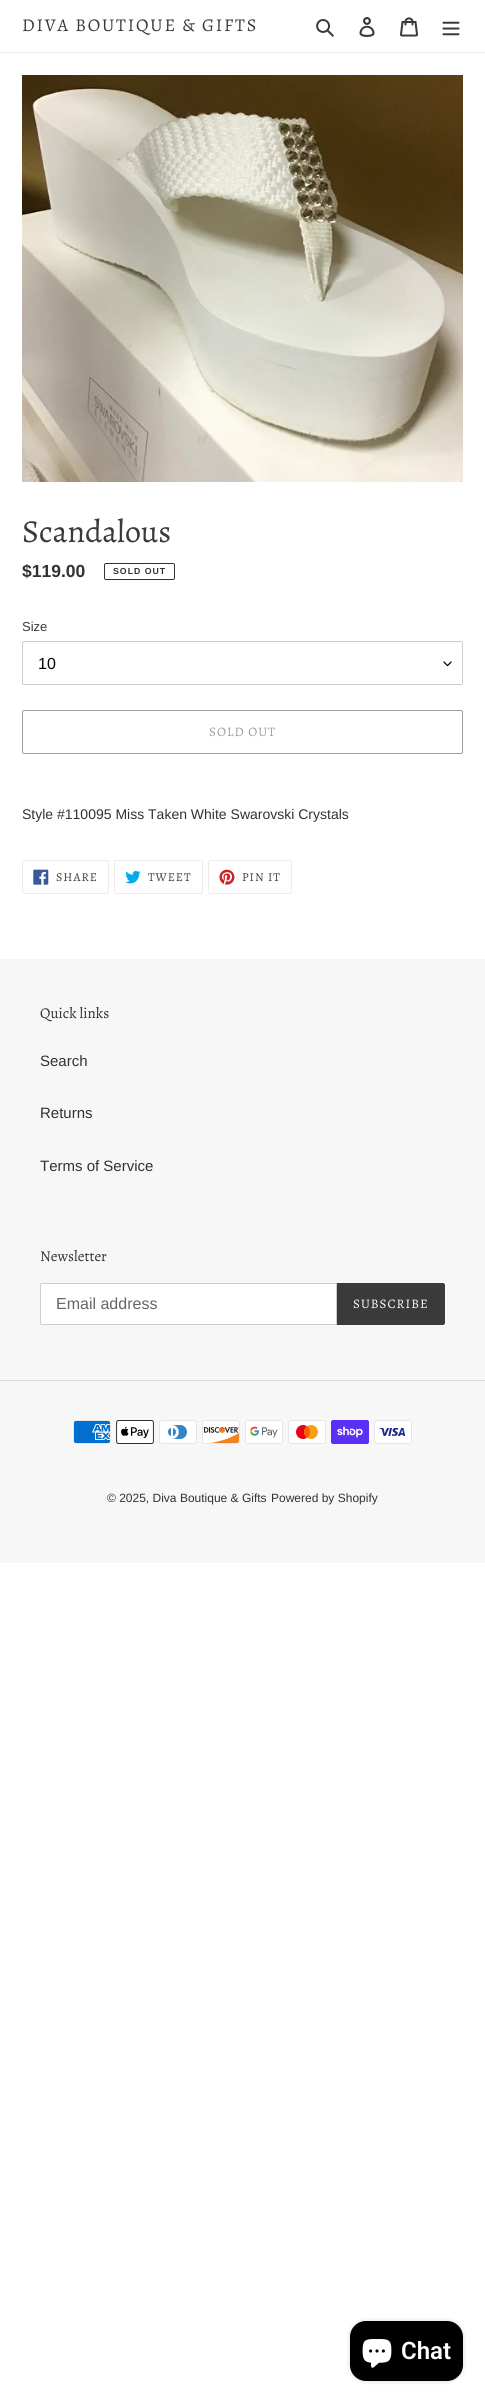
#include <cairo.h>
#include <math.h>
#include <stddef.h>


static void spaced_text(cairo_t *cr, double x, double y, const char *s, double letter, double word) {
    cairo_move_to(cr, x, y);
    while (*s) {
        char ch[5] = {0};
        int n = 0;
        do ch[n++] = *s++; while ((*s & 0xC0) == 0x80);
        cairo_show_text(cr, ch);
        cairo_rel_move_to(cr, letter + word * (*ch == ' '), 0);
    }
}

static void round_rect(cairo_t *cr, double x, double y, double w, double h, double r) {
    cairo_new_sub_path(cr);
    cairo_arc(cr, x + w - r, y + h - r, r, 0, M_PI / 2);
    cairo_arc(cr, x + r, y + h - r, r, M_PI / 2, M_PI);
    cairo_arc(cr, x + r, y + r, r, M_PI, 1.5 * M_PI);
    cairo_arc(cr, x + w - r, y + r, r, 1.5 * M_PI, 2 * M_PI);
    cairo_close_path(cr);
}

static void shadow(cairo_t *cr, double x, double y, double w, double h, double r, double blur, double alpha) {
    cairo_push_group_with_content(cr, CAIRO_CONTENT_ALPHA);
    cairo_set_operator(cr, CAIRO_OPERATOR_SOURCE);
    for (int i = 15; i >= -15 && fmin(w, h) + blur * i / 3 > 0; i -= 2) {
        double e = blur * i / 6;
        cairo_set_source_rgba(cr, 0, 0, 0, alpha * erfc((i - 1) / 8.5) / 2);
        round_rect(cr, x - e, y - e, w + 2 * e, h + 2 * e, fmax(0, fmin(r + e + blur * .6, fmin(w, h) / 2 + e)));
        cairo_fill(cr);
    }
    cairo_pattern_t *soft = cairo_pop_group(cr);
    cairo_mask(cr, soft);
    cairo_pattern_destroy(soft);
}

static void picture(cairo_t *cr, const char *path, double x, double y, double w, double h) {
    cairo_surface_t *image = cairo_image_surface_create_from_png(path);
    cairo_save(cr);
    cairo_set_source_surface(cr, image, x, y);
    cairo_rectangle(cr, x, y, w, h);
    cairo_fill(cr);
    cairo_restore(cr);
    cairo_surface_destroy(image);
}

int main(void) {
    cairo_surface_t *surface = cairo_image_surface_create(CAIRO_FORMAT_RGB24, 485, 2402);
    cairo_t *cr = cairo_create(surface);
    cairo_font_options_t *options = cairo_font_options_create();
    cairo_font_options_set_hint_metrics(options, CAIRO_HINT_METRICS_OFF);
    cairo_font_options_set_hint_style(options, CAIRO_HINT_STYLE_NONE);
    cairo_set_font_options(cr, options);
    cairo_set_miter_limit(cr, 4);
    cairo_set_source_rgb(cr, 1, 1, 1);
    cairo_paint(cr);
    cairo_set_source_rgb(cr, 0.922, 0.922, 0.922);
    cairo_rectangle(cr, 0, 52, 485, 1);
    cairo_fill(cr);
    cairo_select_font_face(cr, "Alegreya", CAIRO_FONT_SLANT_NORMAL, CAIRO_FONT_WEIGHT_NORMAL);
    cairo_set_font_size(cr, 18);
    cairo_set_source_rgb(cr, 0.227, 0.227, 0.227);
    spaced_text(cr, 22, 31, "DIVA BOUTIQUE & GIFTS", 1.8, 0);
    picture(cr, "img1.png", 316, 19, 18, 18);
    picture(cr, "img2.png", 359, 17, 16, 20);
    picture(cr, "img3.png", 400, 17, 18, 20);
    picture(cr, "img4.png", 442, 21, 18, 15);
    picture(cr, "img5.png", 22, 75, 441, 407);
    cairo_set_font_size(cr, 32);
    cairo_move_to(cr, 22, 542);
    cairo_show_text(cr, "Scandalous");
    cairo_select_font_face(cr, "Liberation Sans", CAIRO_FONT_SLANT_NORMAL, CAIRO_FONT_WEIGHT_BOLD);
    cairo_set_font_size(cr, 17.5);
    cairo_set_source_rgb(cr, 0.2, 0.196, 0.196);
    cairo_move_to(cr, 22, 577);
    cairo_show_text(cr, "$119.00");
    round_rect(cr, 104.5, 563.5, 70, 16, 1.5);
    cairo_set_line_width(cr, 1);
    cairo_stroke(cr);
    cairo_set_font_size(cr, 8.75);
    spaced_text(cr, 113, 574, "SOLD OUT", 1, 0);
    cairo_select_font_face(cr, "Liberation Sans", CAIRO_FONT_SLANT_NORMAL, CAIRO_FONT_WEIGHT_NORMAL);
    cairo_set_font_size(cr, 13);
    cairo_set_source_rgb(cr, 0.227, 0.227, 0.227);
    cairo_move_to(cr, 22, 631);
    cairo_show_text(cr, "Size");
    picture(cr, "img6.png", 443, 661, 9, 6);
    round_rect(cr, 22.5, 641.5, 440, 43, 1.5);
    cairo_set_source_rgb(cr, 0.8, 0.8, 0.8);
    cairo_stroke(cr);
    cairo_set_font_size(cr, 16);
    cairo_set_source_rgb(cr, 0, 0, 0);
    cairo_move_to(cr, 38, 669);
    cairo_show_text(cr, "10");
    round_rect(cr, 22.5, 710.5, 440, 43, 1.5);
    cairo_set_source_rgb(cr, 0.616, 0.616, 0.616);
    cairo_stroke(cr);
    cairo_select_font_face(cr, "Alegreya", CAIRO_FONT_SLANT_NORMAL, CAIRO_FONT_WEIGHT_NORMAL);
    cairo_set_font_size(cr, 13);
    spaced_text(cr, 209, 736, "SOLD OUT", 1, 0);
    cairo_select_font_face(cr, "Liberation Sans", CAIRO_FONT_SLANT_NORMAL, CAIRO_FONT_WEIGHT_NORMAL);
    cairo_set_font_size(cr, 14);
    cairo_set_source_rgb(cr, 0.2, 0.196, 0.196);
    cairo_move_to(cr, 22, 819);
    cairo_show_text(cr, "Style #110095 Miss Taken White Swarovski Crystals");
    round_rect(cr, 22.5, 860.5, 86, 33, 1.5);
    cairo_set_source_rgb(cr, 0.922, 0.922, 0.922);
    cairo_stroke(cr);
    picture(cr, "img7.png", 33, 869, 16, 16);
    cairo_select_font_face(cr, "Alegreya", CAIRO_FONT_SLANT_NORMAL, CAIRO_FONT_WEIGHT_NORMAL);
    cairo_set_font_size(cr, 12);
    cairo_set_source_rgb(cr, 0.227, 0.227, 0.227);
    spaced_text(cr, 56, 881, "SHARE", 1, 0);
    round_rect(cr, 114.5, 860.5, 88, 33, 1.5);
    cairo_set_source_rgb(cr, 0.922, 0.922, 0.922);
    cairo_stroke(cr);
    picture(cr, "img8.png", 125, 870, 16, 14);
    cairo_set_source_rgb(cr, 0.227, 0.227, 0.227);
    spaced_text(cr, 148, 881, "TWEET", 1, 0);
    round_rect(cr, 208.5, 860.5, 83, 33, 1.5);
    cairo_set_source_rgb(cr, 0.922, 0.922, 0.922);
    cairo_stroke(cr);
    picture(cr, "img9.png", 219, 869, 16, 16);
    cairo_set_source_rgb(cr, 0.227, 0.227, 0.227);
    spaced_text(cr, 242, 881, "PIN IT", 1, 0);
    cairo_set_source_rgb(cr, 0.965, 0.965, 0.965);
    cairo_rectangle(cr, 0, 959, 485, 604);
    cairo_fill(cr);
    cairo_set_font_size(cr, 15);
    cairo_set_source_rgb(cr, 0.2, 0.196, 0.196);
    cairo_move_to(cr, 40, 1018);
    cairo_show_text(cr, "Quick links");
    cairo_select_font_face(cr, "Liberation Sans", CAIRO_FONT_SLANT_NORMAL, CAIRO_FONT_WEIGHT_NORMAL);
    cairo_move_to(cr, 40, 1066);
    cairo_show_text(cr, "Search");
    cairo_move_to(cr, 40, 1118);
    cairo_show_text(cr, "Returns");
    cairo_move_to(cr, 40, 1171);
    cairo_show_text(cr, "Terms of Service");
    cairo_select_font_face(cr, "Alegreya", CAIRO_FONT_SLANT_NORMAL, CAIRO_FONT_WEIGHT_NORMAL);
    cairo_move_to(cr, 40, 1261);
    cairo_show_text(cr, "Newsletter");
    cairo_set_source_rgb(cr, 1, 1, 1);
    cairo_new_path(cr);
    cairo_move_to(cr, 42, 1283.5);
    cairo_line_to(cr, 336.5, 1283.5);
    cairo_line_to(cr, 336.5, 1324.5);
    cairo_line_to(cr, 42, 1324.5);
    cairo_curve_to(cr, 41, 1324.5, 40.5, 1324, 40.5, 1323);
    cairo_line_to(cr, 40.5, 1285);
    cairo_curve_to(cr, 40.5, 1284, 41, 1283.5, 42, 1283.5);
    cairo_close_path(cr);
    cairo_fill_preserve(cr);
    cairo_set_source_rgb(cr, 0.8, 0.8, 0.8);
    cairo_stroke(cr);
    cairo_select_font_face(cr, "Liberation Sans", CAIRO_FONT_SLANT_NORMAL, CAIRO_FONT_WEIGHT_NORMAL);
    cairo_set_font_size(cr, 16);
    cairo_set_source_rgb(cr, 0.4, 0.4, 0.4);
    cairo_move_to(cr, 56, 1309);
    cairo_show_text(cr, "Email address");
    cairo_set_source_rgb(cr, 0.227, 0.227, 0.227);
    cairo_new_path(cr);
    cairo_move_to(cr, 337, 1283);
    cairo_line_to(cr, 443, 1283);
    cairo_curve_to(cr, 444, 1283, 445, 1284, 445, 1285);
    cairo_line_to(cr, 445, 1323);
    cairo_curve_to(cr, 445, 1324, 444, 1325, 443, 1325);
    cairo_line_to(cr, 337, 1325);
    cairo_close_path(cr);
    cairo_fill(cr);
    cairo_select_font_face(cr, "Alegreya", CAIRO_FONT_SLANT_NORMAL, CAIRO_FONT_WEIGHT_NORMAL);
    cairo_set_font_size(cr, 13);
    cairo_set_source_rgb(cr, 1, 1, 1);
    spaced_text(cr, 353, 1308, "SUBSCRIBE", 1, 0);
    cairo_set_source_rgb(cr, 0.867, 0.867, 0.867);
    cairo_rectangle(cr, 0, 1380, 485, 1);
    cairo_fill(cr);
    picture(cr, "img10.png", 73, 1420, 38, 24);
    picture(cr, "img11.png", 116, 1420, 38, 24);
    picture(cr, "img12.png", 159, 1420, 38, 24);
    picture(cr, "img13.png", 202, 1420, 38, 24);
    picture(cr, "img14.png", 245, 1420, 38, 24);
    picture(cr, "img15.png", 288, 1420, 38, 24);
    picture(cr, "img16.png", 331, 1420, 38, 24);
    picture(cr, "img17.png", 374, 1420, 38, 24);
    cairo_select_font_face(cr, "Liberation Sans", CAIRO_FONT_SLANT_NORMAL, CAIRO_FONT_WEIGHT_NORMAL);
    cairo_set_font_size(cr, 12);
    cairo_set_source_rgb(cr, 0.2, 0.196, 0.196);
    cairo_move_to(cr, 107, 1502);
    cairo_show_text(cr, "© 2025, Diva Boutique & Gifts");
    cairo_move_to(cr, 271, 1502);
    cairo_show_text(cr, "Powered by Shopify");
    cairo_set_source_rgb(cr, 0, 0, 0);
    shadow(cr, 350, 2321, 113, 60, 16, 2.5, 0.15);
    cairo_set_source_rgb(cr, 0, 0, 0);
    round_rect(cr, 350, 2321, 113, 60, 16);
    cairo_fill(cr);
    picture(cr, "img18.png", 362, 2339, 30, 29);
    cairo_select_font_face(cr, "Roboto SemiBold", CAIRO_FONT_SLANT_NORMAL, CAIRO_FONT_WEIGHT_NORMAL);
    cairo_set_font_size(cr, 24);
    cairo_set_source_rgb(cr, 1, 1, 1);
    cairo_move_to(cr, 401, 2359);
    cairo_show_text(cr, "Chat");
    cairo_surface_write_to_png(surface, "page.png");
    cairo_font_options_destroy(options);
    cairo_destroy(cr);
    cairo_surface_destroy(surface);
    return 0;
}
